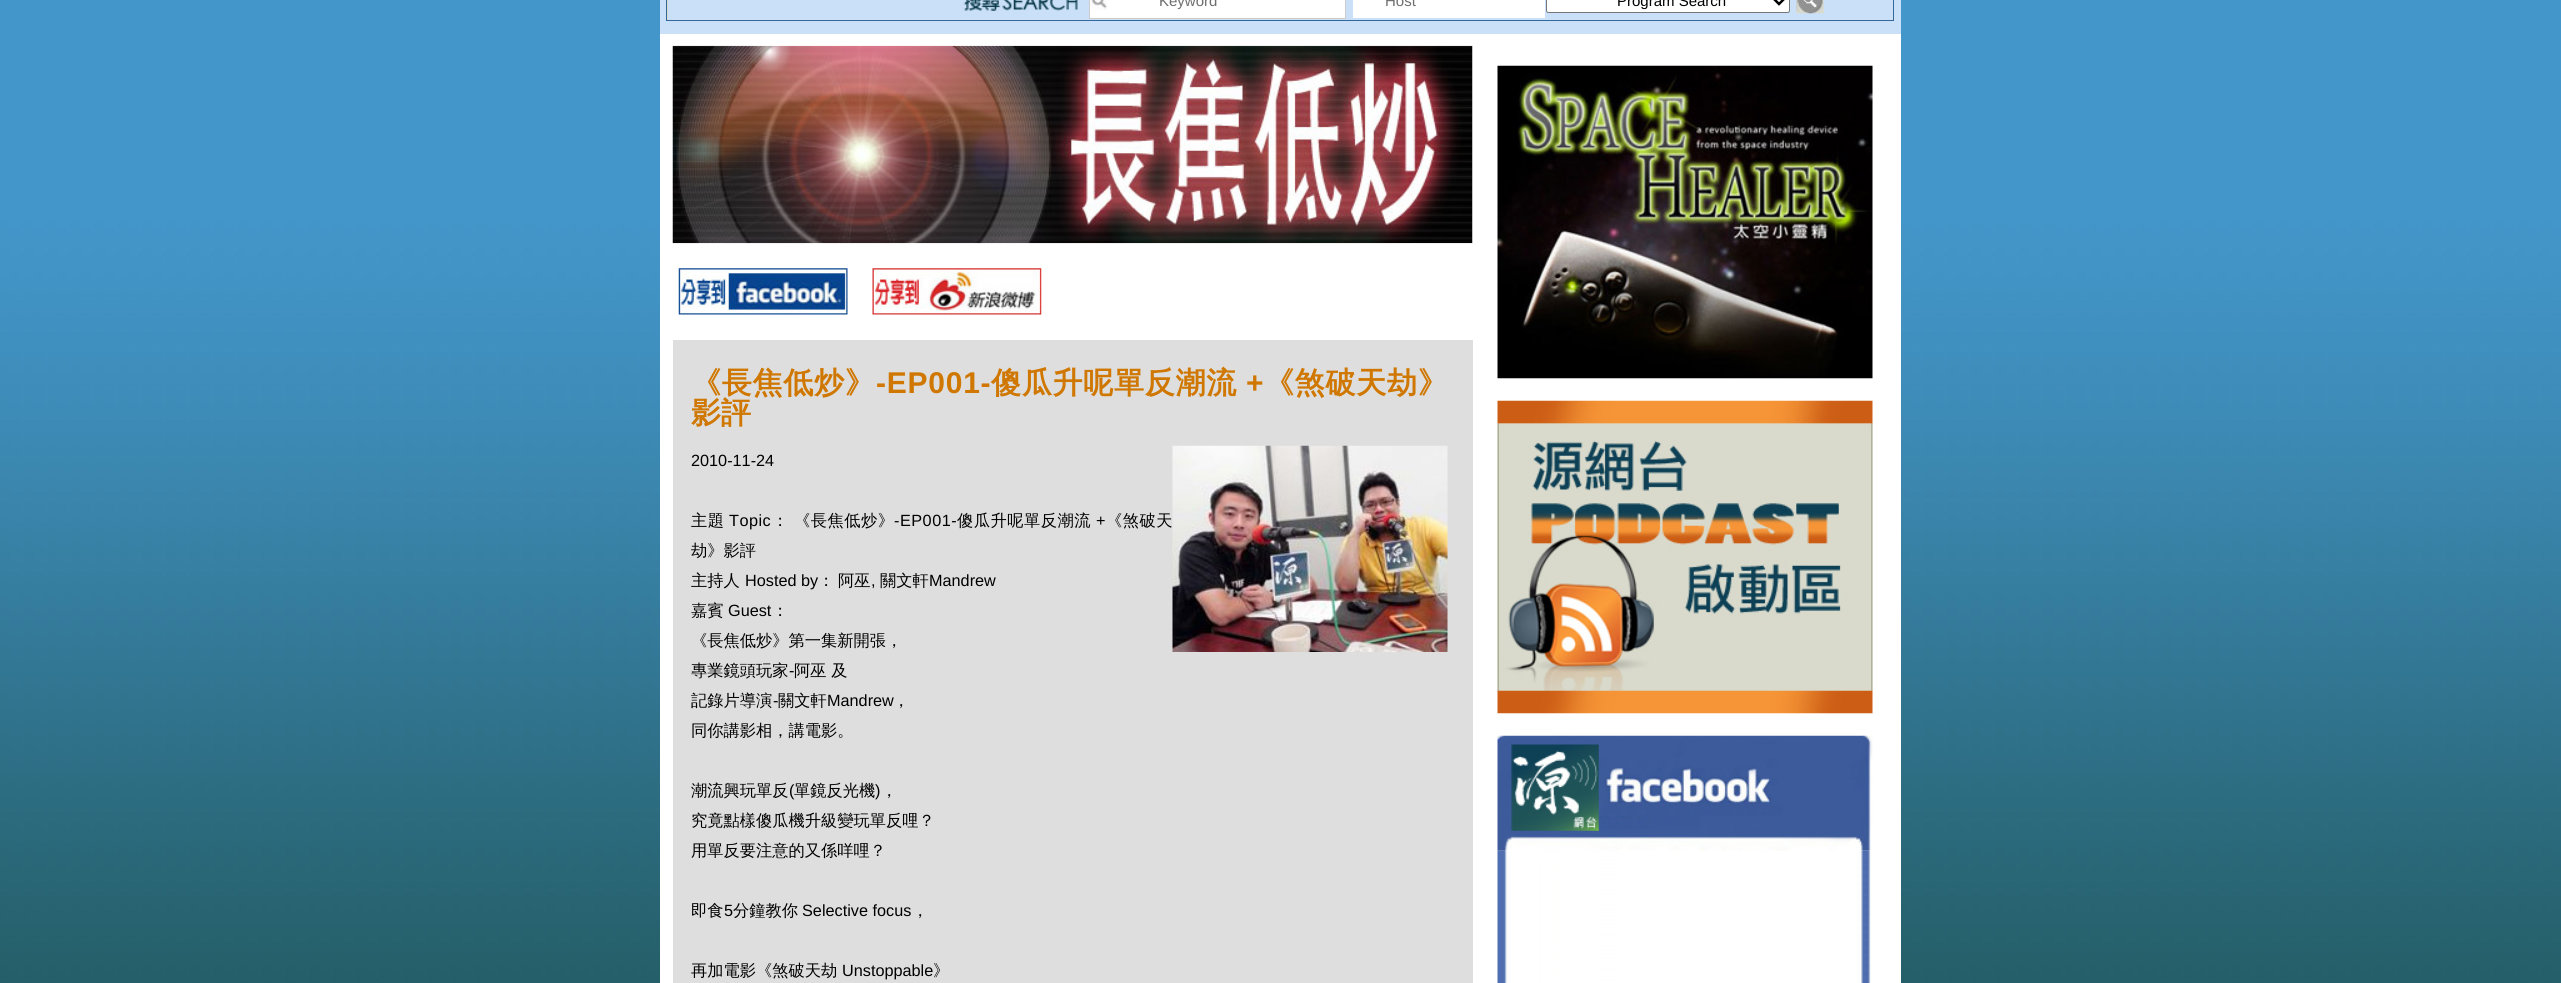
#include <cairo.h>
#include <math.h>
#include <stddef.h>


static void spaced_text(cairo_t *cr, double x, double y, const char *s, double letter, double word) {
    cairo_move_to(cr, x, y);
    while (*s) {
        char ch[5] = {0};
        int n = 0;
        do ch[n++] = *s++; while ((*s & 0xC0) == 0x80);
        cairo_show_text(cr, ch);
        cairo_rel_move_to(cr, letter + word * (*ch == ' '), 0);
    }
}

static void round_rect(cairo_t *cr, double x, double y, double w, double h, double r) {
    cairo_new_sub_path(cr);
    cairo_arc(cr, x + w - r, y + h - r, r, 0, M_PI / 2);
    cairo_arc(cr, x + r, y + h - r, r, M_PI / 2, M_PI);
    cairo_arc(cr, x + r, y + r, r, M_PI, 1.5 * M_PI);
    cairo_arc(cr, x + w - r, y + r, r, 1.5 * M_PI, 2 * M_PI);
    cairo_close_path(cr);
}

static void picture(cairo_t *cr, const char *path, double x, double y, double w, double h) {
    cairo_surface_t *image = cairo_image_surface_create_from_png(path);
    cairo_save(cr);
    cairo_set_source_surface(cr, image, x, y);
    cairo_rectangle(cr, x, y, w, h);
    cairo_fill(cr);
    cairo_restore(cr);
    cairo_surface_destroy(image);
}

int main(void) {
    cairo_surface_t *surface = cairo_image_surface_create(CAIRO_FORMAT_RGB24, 2561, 983);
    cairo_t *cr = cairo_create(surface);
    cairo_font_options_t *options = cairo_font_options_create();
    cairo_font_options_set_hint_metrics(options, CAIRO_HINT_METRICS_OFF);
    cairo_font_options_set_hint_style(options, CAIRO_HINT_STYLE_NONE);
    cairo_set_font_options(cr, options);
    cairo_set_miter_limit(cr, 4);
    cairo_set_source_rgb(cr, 1, 1, 1);
    cairo_paint(cr);
    picture(cr, "img1.png", 0, 0, 2561, 983);
    cairo_set_source_rgb(cr, 0.792, 0.878, 0.969);
    cairo_rectangle(cr, 660, 0, 1241, 34);
    cairo_fill(cr);
    cairo_set_source_rgb(cr, 0.859, 0.851, 0.792);
    cairo_rectangle(cr, 667, 0, 1, 20);
    cairo_fill(cr);
    cairo_rectangle(cr, 666.5, -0.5, 1227, 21);
    cairo_set_source_rgb(cr, 0.204, 0.408, 0.604);
    cairo_set_line_width(cr, 1);
    cairo_stroke(cr);
    picture(cr, "img2.png", 963, 0, 115, 11);
    cairo_set_source_rgb(cr, 1, 1, 1);
    cairo_rectangle(cr, 1089.5, -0.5, 256, 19);
    cairo_fill_preserve(cr);
    cairo_set_source_rgb(cr, 0.804, 0.8, 0.792);
    cairo_stroke(cr);
    picture(cr, "img3.png", 1090, 0, 17, 12);
    cairo_select_font_face(cr, "Liberation Sans", CAIRO_FONT_SLANT_NORMAL, CAIRO_FONT_WEIGHT_NORMAL);
    cairo_set_font_size(cr, 15);
    cairo_set_source_rgb(cr, 0.431, 0.431, 0.431);
    cairo_move_to(cr, 1159, 6);
    cairo_show_text(cr, "Keyword");
    cairo_set_source_rgb(cr, 1, 1, 1);
    cairo_rectangle(cr, 1353, 0, 192, 18);
    cairo_fill(cr);
    cairo_set_source_rgb(cr, 0.431, 0.431, 0.431);
    cairo_move_to(cr, 1385, 6);
    cairo_show_text(cr, "Host");
    cairo_set_source_rgb(cr, 1, 1, 1);
    round_rect(cr, 1546.5, -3.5, 243, 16, 2);
    cairo_fill_preserve(cr);
    cairo_set_source_rgb(cr, 0.463, 0.463, 0.463);
    cairo_stroke(cr);
    cairo_new_path(cr);
    cairo_move_to(cr, 1774, -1);
    cairo_line_to(cr, 1779, 4);
    cairo_line_to(cr, 1784, -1);
    cairo_set_source_rgb(cr, 0, 0, 0);
    cairo_set_line_width(cr, 2.5);
    cairo_stroke(cr);
    cairo_move_to(cr, 1617, 6);
    cairo_show_text(cr, "Program Search");
    picture(cr, "img4.png", 1796, 0, 28, 14);
    cairo_set_source_rgb(cr, 1, 1, 1);
    cairo_rectangle(cr, 660, 34, 1241, 949);
    cairo_fill(cr);
    picture(cr, "img5.png", 672, 45, 801, 199);
    picture(cr, "img6.png", 678, 268, 170, 47);
    picture(cr, "img7.png", 872, 268, 170, 47);
    cairo_set_source_rgb(cr, 0.871, 0.871, 0.871);
    cairo_rectangle(cr, 673, 340, 800, 643);
    cairo_fill(cr);
    cairo_select_font_face(cr, "WenQuanYi Zen Hei", CAIRO_FONT_SLANT_NORMAL, CAIRO_FONT_WEIGHT_BOLD);
    cairo_set_font_size(cr, 30);
    cairo_set_source_rgb(cr, 0.812, 0.467, 0);
    spaced_text(cr, 691, 393, "《長焦低炒》", 0.75, 0);
    cairo_select_font_face(cr, "Liberation Sans", CAIRO_FONT_SLANT_NORMAL, CAIRO_FONT_WEIGHT_BOLD);
    spaced_text(cr, 876, 393, "-EP001-", 0.75, 0);
    cairo_select_font_face(cr, "WenQuanYi Zen Hei", CAIRO_FONT_SLANT_NORMAL, CAIRO_FONT_WEIGHT_BOLD);
    spaced_text(cr, 991, 393, "傻瓜升呢單反潮流", 0.75, 0);
    cairo_select_font_face(cr, "Liberation Sans", CAIRO_FONT_SLANT_NORMAL, CAIRO_FONT_WEIGHT_BOLD);
    spaced_text(cr, 1246, 393, "+", 0.75, 0);
    cairo_select_font_face(cr, "WenQuanYi Zen Hei", CAIRO_FONT_SLANT_NORMAL, CAIRO_FONT_WEIGHT_BOLD);
    spaced_text(cr, 1264, 393, "《煞破天劫》", 0.75, 0);
    cairo_move_to(cr, 691, 423);
    cairo_show_text(cr, "影評");
    cairo_select_font_face(cr, "Liberation Sans", CAIRO_FONT_SLANT_NORMAL, CAIRO_FONT_WEIGHT_NORMAL);
    cairo_set_font_size(cr, 16.25);
    cairo_set_source_rgb(cr, 0, 0, 0);
    cairo_move_to(cr, 691, 466);
    cairo_show_text(cr, "2010-11-24");
    picture(cr, "img8.png", 1172, 445, 276, 207);
    cairo_select_font_face(cr, "WenQuanYi Zen Hei Medium", CAIRO_FONT_SLANT_NORMAL, CAIRO_FONT_WEIGHT_NORMAL);
    spaced_text(cr, 691, 526, "主題", 0.5, 0);
    cairo_select_font_face(cr, "Liberation Sans", CAIRO_FONT_SLANT_NORMAL, CAIRO_FONT_WEIGHT_NORMAL);
    spaced_text(cr, 729, 526, "Topic", 0.5, 0);
    cairo_select_font_face(cr, "WenQuanYi Zen Hei Medium", CAIRO_FONT_SLANT_NORMAL, CAIRO_FONT_WEIGHT_NORMAL);
    spaced_text(cr, 772, 526, "： 《長焦低炒》", 0.5, 0);
    cairo_select_font_face(cr, "Liberation Sans", CAIRO_FONT_SLANT_NORMAL, CAIRO_FONT_WEIGHT_NORMAL);
    spaced_text(cr, 894, 526, "-EP001-", 0.5, 0);
    cairo_select_font_face(cr, "WenQuanYi Zen Hei Medium", CAIRO_FONT_SLANT_NORMAL, CAIRO_FONT_WEIGHT_NORMAL);
    spaced_text(cr, 957, 526, "傻瓜升呢單反潮流", 0.5, 0);
    cairo_select_font_face(cr, "Liberation Sans", CAIRO_FONT_SLANT_NORMAL, CAIRO_FONT_WEIGHT_NORMAL);
    spaced_text(cr, 1096, 526, "+", 0.5, 0);
    cairo_select_font_face(cr, "WenQuanYi Zen Hei Medium", CAIRO_FONT_SLANT_NORMAL, CAIRO_FONT_WEIGHT_NORMAL);
    spaced_text(cr, 1106, 526, "《煞破天", 0.5, 0);
    cairo_move_to(cr, 691, 556);
    cairo_show_text(cr, "劫》影評");
    cairo_move_to(cr, 691, 586);
    cairo_show_text(cr, "主持人");
    cairo_select_font_face(cr, "Liberation Sans", CAIRO_FONT_SLANT_NORMAL, CAIRO_FONT_WEIGHT_NORMAL);
    cairo_move_to(cr, 745, 586);
    cairo_show_text(cr, "Hosted by");
    cairo_select_font_face(cr, "WenQuanYi Zen Hei Medium", CAIRO_FONT_SLANT_NORMAL, CAIRO_FONT_WEIGHT_NORMAL);
    cairo_move_to(cr, 818, 586);
    cairo_show_text(cr, "：");
    cairo_move_to(cr, 838, 586);
    cairo_show_text(cr, "阿巫");
    cairo_move_to(cr, 880, 586);
    cairo_show_text(cr, "關文軒");
    cairo_select_font_face(cr, "Liberation Sans", CAIRO_FONT_SLANT_NORMAL, CAIRO_FONT_WEIGHT_NORMAL);
    cairo_move_to(cr, 929, 586);
    cairo_show_text(cr, "Mandrew");
    cairo_move_to(cr, 871, 586);
    cairo_show_text(cr, ",");
    cairo_select_font_face(cr, "WenQuanYi Zen Hei Medium", CAIRO_FONT_SLANT_NORMAL, CAIRO_FONT_WEIGHT_NORMAL);
    cairo_move_to(cr, 691, 616);
    cairo_show_text(cr, "嘉賓");
    cairo_select_font_face(cr, "Liberation Sans", CAIRO_FONT_SLANT_NORMAL, CAIRO_FONT_WEIGHT_NORMAL);
    cairo_move_to(cr, 728, 616);
    cairo_show_text(cr, "Guest");
    cairo_select_font_face(cr, "WenQuanYi Zen Hei Medium", CAIRO_FONT_SLANT_NORMAL, CAIRO_FONT_WEIGHT_NORMAL);
    cairo_move_to(cr, 772, 616);
    cairo_show_text(cr, "：");
    cairo_move_to(cr, 691, 646);
    cairo_show_text(cr, "《長焦低炒》第一集新開張，");
    cairo_move_to(cr, 691, 676);
    cairo_show_text(cr, "專業鏡頭玩家");
    cairo_select_font_face(cr, "Liberation Sans", CAIRO_FONT_SLANT_NORMAL, CAIRO_FONT_WEIGHT_NORMAL);
    cairo_move_to(cr, 789, 676);
    cairo_show_text(cr, "-");
    cairo_select_font_face(cr, "WenQuanYi Zen Hei Medium", CAIRO_FONT_SLANT_NORMAL, CAIRO_FONT_WEIGHT_NORMAL);
    cairo_move_to(cr, 794, 676);
    cairo_show_text(cr, "阿巫 及");
    cairo_move_to(cr, 691, 706);
    cairo_show_text(cr, "記錄片導演");
    cairo_select_font_face(cr, "Liberation Sans", CAIRO_FONT_SLANT_NORMAL, CAIRO_FONT_WEIGHT_NORMAL);
    cairo_move_to(cr, 773, 706);
    cairo_show_text(cr, "-");
    cairo_select_font_face(cr, "WenQuanYi Zen Hei Medium", CAIRO_FONT_SLANT_NORMAL, CAIRO_FONT_WEIGHT_NORMAL);
    cairo_move_to(cr, 778, 706);
    cairo_show_text(cr, "關文軒");
    cairo_select_font_face(cr, "Liberation Sans", CAIRO_FONT_SLANT_NORMAL, CAIRO_FONT_WEIGHT_NORMAL);
    cairo_move_to(cr, 827, 706);
    cairo_show_text(cr, "Mandrew");
    cairo_select_font_face(cr, "WenQuanYi Zen Hei Medium", CAIRO_FONT_SLANT_NORMAL, CAIRO_FONT_WEIGHT_NORMAL);
    cairo_move_to(cr, 893, 706);
    cairo_show_text(cr, "，");
    cairo_move_to(cr, 691, 736);
    cairo_show_text(cr, "同你講影相，講電影。");
    cairo_move_to(cr, 691, 796);
    cairo_show_text(cr, "潮流興玩單反");
    cairo_select_font_face(cr, "Liberation Sans", CAIRO_FONT_SLANT_NORMAL, CAIRO_FONT_WEIGHT_NORMAL);
    cairo_move_to(cr, 789, 796);
    cairo_show_text(cr, "(");
    cairo_select_font_face(cr, "WenQuanYi Zen Hei Medium", CAIRO_FONT_SLANT_NORMAL, CAIRO_FONT_WEIGHT_NORMAL);
    cairo_move_to(cr, 794, 796);
    cairo_show_text(cr, "單鏡反光機");
    cairo_select_font_face(cr, "Liberation Sans", CAIRO_FONT_SLANT_NORMAL, CAIRO_FONT_WEIGHT_NORMAL);
    cairo_move_to(cr, 875, 796);
    cairo_show_text(cr, ")");
    cairo_select_font_face(cr, "WenQuanYi Zen Hei Medium", CAIRO_FONT_SLANT_NORMAL, CAIRO_FONT_WEIGHT_NORMAL);
    cairo_move_to(cr, 881, 796);
    cairo_show_text(cr, "，");
    cairo_move_to(cr, 691, 826);
    cairo_show_text(cr, "究竟點樣傻瓜機升級變玩單反哩？");
    cairo_move_to(cr, 691, 856);
    cairo_show_text(cr, "用單反要注意的又係咩哩？");
    cairo_move_to(cr, 691, 916);
    cairo_show_text(cr, "即食");
    cairo_select_font_face(cr, "Liberation Sans", CAIRO_FONT_SLANT_NORMAL, CAIRO_FONT_WEIGHT_NORMAL);
    cairo_move_to(cr, 724, 916);
    cairo_show_text(cr, "5");
    cairo_select_font_face(cr, "WenQuanYi Zen Hei Medium", CAIRO_FONT_SLANT_NORMAL, CAIRO_FONT_WEIGHT_NORMAL);
    cairo_move_to(cr, 733, 916);
    cairo_show_text(cr, "分鐘教你");
    cairo_select_font_face(cr, "Liberation Sans", CAIRO_FONT_SLANT_NORMAL, CAIRO_FONT_WEIGHT_NORMAL);
    cairo_move_to(cr, 802, 916);
    cairo_show_text(cr, "Selective focus");
    cairo_select_font_face(cr, "WenQuanYi Zen Hei Medium", CAIRO_FONT_SLANT_NORMAL, CAIRO_FONT_WEIGHT_NORMAL);
    cairo_move_to(cr, 912, 916);
    cairo_show_text(cr, "，");
    cairo_move_to(cr, 691, 976);
    cairo_show_text(cr, "再加電影《煞破天劫");
    cairo_select_font_face(cr, "Liberation Sans", CAIRO_FONT_SLANT_NORMAL, CAIRO_FONT_WEIGHT_NORMAL);
    cairo_move_to(cr, 842, 976);
    cairo_show_text(cr, "Unstoppable");
    cairo_select_font_face(cr, "WenQuanYi Zen Hei Medium", CAIRO_FONT_SLANT_NORMAL, CAIRO_FONT_WEIGHT_NORMAL);
    cairo_move_to(cr, 933, 976);
    cairo_show_text(cr, "》");
    picture(cr, "img9.png", 1497, 65, 376, 314);
    picture(cr, "img10.png", 1497, 400, 376, 314);
    picture(cr, "img11.png", 1497, 735, 376, 116);
    picture(cr, "img12.png", 1497, 850, 374, 133);
    cairo_surface_write_to_png(surface, "page.png");
    cairo_font_options_destroy(options);
    cairo_destroy(cr);
    cairo_surface_destroy(surface);
    return 0;
}
